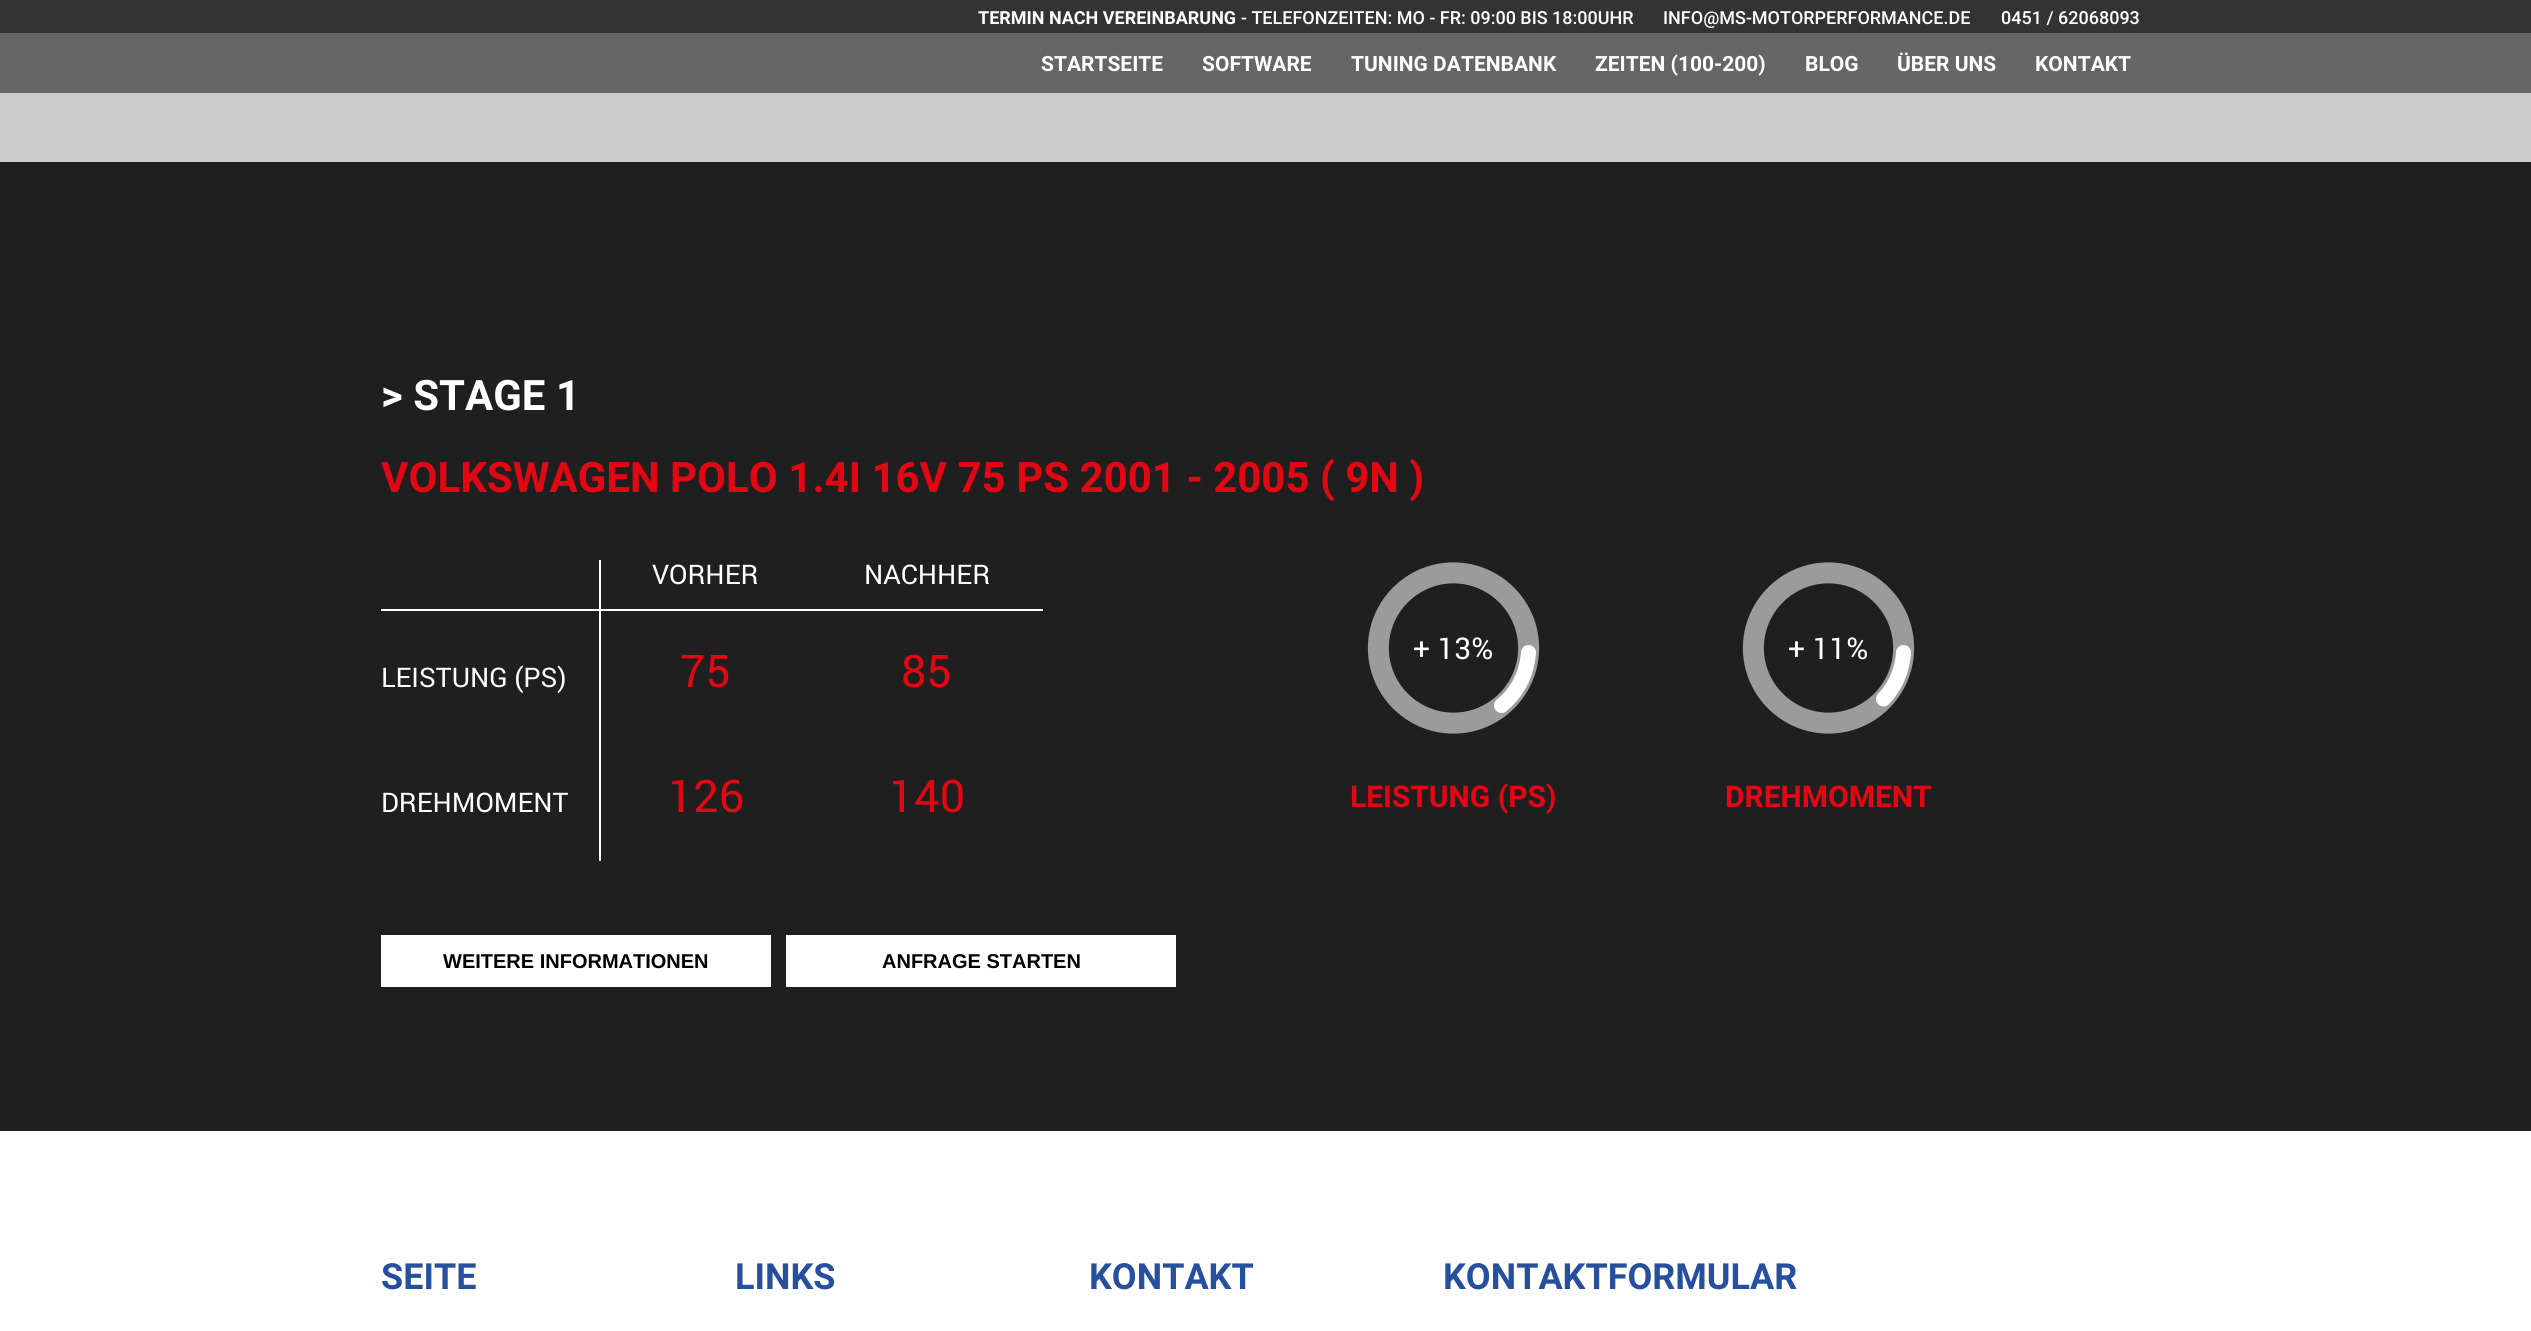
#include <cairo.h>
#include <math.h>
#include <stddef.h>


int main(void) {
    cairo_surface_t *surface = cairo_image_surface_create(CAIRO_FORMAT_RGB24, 2531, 1331);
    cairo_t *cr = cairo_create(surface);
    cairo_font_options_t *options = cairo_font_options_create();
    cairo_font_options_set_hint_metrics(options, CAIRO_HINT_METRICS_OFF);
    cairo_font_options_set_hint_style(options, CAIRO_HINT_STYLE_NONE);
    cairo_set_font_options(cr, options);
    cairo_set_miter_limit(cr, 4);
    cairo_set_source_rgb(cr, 0.122, 0.122, 0.122);
    cairo_paint(cr);
    cairo_set_source_rgb(cr, 0.4, 0.4, 0.4);
    cairo_rectangle(cr, 0, 33, 2531, 60);
    cairo_fill(cr);
    cairo_set_source_rgb(cr, 0.2, 0.2, 0.2);
    cairo_rectangle(cr, 0, 0, 2531, 33);
    cairo_fill(cr);
    cairo_select_font_face(cr, "Roboto", CAIRO_FONT_SLANT_NORMAL, CAIRO_FONT_WEIGHT_BOLD);
    cairo_set_font_size(cr, 18);
    cairo_set_source_rgb(cr, 1, 1, 1);
    cairo_move_to(cr, 978, 24);
    cairo_show_text(cr, "TERMIN NACH VEREINBARUNG");
    cairo_select_font_face(cr, "Roboto Medium", CAIRO_FONT_SLANT_NORMAL, CAIRO_FONT_WEIGHT_NORMAL);
    cairo_move_to(cr, 1241, 24);
    cairo_show_text(cr, "- TELEFONZEITEN: MO - FR: 09:00 BIS 18:00UHR");
    cairo_move_to(cr, 1663, 24);
    cairo_show_text(cr, "INFO@MS-MOTORPERFORMANCE.DE");
    cairo_move_to(cr, 2001, 24);
    cairo_show_text(cr, "0451 / 62068093");
    cairo_select_font_face(cr, "Roboto", CAIRO_FONT_SLANT_NORMAL, CAIRO_FONT_WEIGHT_BOLD);
    cairo_set_font_size(cr, 21);
    cairo_move_to(cr, 1041, 71);
    cairo_show_text(cr, "STARTSEITE");
    cairo_move_to(cr, 1202, 71);
    cairo_show_text(cr, "SOFTWARE");
    cairo_move_to(cr, 1351, 71);
    cairo_show_text(cr, "TUNING DATENBANK");
    cairo_move_to(cr, 1595, 71);
    cairo_show_text(cr, "ZEITEN (100-200)");
    cairo_move_to(cr, 1805, 71);
    cairo_show_text(cr, "BLOG");
    cairo_move_to(cr, 1897, 71);
    cairo_show_text(cr, "ÜBER UNS");
    cairo_move_to(cr, 2035, 71);
    cairo_show_text(cr, "KONTAKT");
    cairo_set_source_rgb(cr, 0.804, 0.804, 0.804);
    cairo_rectangle(cr, 0, 93, 2531, 69);
    cairo_fill(cr);
    cairo_set_font_size(cr, 42);
    cairo_set_source_rgb(cr, 1, 1, 1);
    cairo_move_to(cr, 381, 410);
    cairo_show_text(cr, "> STAGE 1");
    cairo_set_source_rgb(cr, 0.89, 0.024, 0.075);
    cairo_move_to(cr, 381, 492);
    cairo_show_text(cr, "VOLKSWAGEN POLO 1.4I 16V 75 PS 2001 - 2005 ( 9N )");
    cairo_set_source_rgb(cr, 1, 1, 1);
    cairo_rectangle(cr, 599, 609, 2, 252);
    cairo_fill(cr);
    cairo_rectangle(cr, 599, 609, 444, 2);
    cairo_fill(cr);
    cairo_rectangle(cr, 599, 560, 2, 51);
    cairo_fill(cr);
    cairo_rectangle(cr, 381, 609, 219, 2);
    cairo_fill(cr);
    cairo_select_font_face(cr, "Roboto", CAIRO_FONT_SLANT_NORMAL, CAIRO_FONT_WEIGHT_NORMAL);
    cairo_set_font_size(cr, 27);
    cairo_move_to(cr, 652, 584);
    cairo_show_text(cr, "VORHER");
    cairo_move_to(cr, 864, 584);
    cairo_show_text(cr, "NACHHER");
    cairo_move_to(cr, 381, 687);
    cairo_show_text(cr, "LEISTUNG (PS)");
    cairo_set_font_size(cr, 45);
    cairo_set_source_rgb(cr, 0.89, 0.024, 0.075);
    cairo_move_to(cr, 680, 687);
    cairo_show_text(cr, "75");
    cairo_move_to(cr, 901, 687);
    cairo_show_text(cr, "85");
    cairo_set_font_size(cr, 27);
    cairo_set_source_rgb(cr, 1, 1, 1);
    cairo_move_to(cr, 381, 812);
    cairo_show_text(cr, "DREHMOMENT");
    cairo_set_font_size(cr, 45);
    cairo_set_source_rgb(cr, 0.89, 0.024, 0.075);
    cairo_move_to(cr, 668, 812);
    cairo_show_text(cr, "126");
    cairo_move_to(cr, 889, 812);
    cairo_show_text(cr, "140");
    cairo_set_source_rgb(cr, 1, 1, 1);
    cairo_rectangle(cr, 381, 935, 390, 52);
    cairo_fill(cr);
    cairo_select_font_face(cr, "Liberation Sans", CAIRO_FONT_SLANT_NORMAL, CAIRO_FONT_WEIGHT_BOLD);
    cairo_set_font_size(cr, 20);
    cairo_set_source_rgb(cr, 0, 0, 0);
    cairo_move_to(cr, 443, 968);
    cairo_show_text(cr, "WEITERE INFORMATIONEN");
    cairo_set_source_rgb(cr, 1, 1, 1);
    cairo_rectangle(cr, 786, 935, 390, 52);
    cairo_fill(cr);
    cairo_set_source_rgb(cr, 0, 0, 0);
    cairo_move_to(cr, 882, 968);
    cairo_show_text(cr, "ANFRAGE STARTEN");
    cairo_select_font_face(cr, "Roboto", CAIRO_FONT_SLANT_NORMAL, CAIRO_FONT_WEIGHT_NORMAL);
    cairo_set_font_size(cr, 30);
    cairo_set_source_rgb(cr, 1, 1, 1);
    cairo_move_to(cr, 1413, 659);
    cairo_show_text(cr, "+ 13%");
    cairo_new_path(cr);
    cairo_move_to(cr, 1528.5, 652.5);
    cairo_curve_to(cr, 1526, 693.5, 1490.5, 725.5, 1449, 723);
    cairo_curve_to(cr, 1408, 720.5, 1376, 685, 1378.5, 643.5);
    cairo_curve_to(cr, 1381, 602.5, 1416.5, 570.5, 1458, 573);
    cairo_curve_to(cr, 1499, 575.5, 1531, 611, 1528.5, 652.5);
    cairo_set_source_rgb(cr, 0.608, 0.608, 0.608);
    cairo_set_line_width(cr, 21);
    cairo_set_line_cap(cr, CAIRO_LINE_CAP_ROUND);
    cairo_stroke(cr);
    cairo_new_path(cr);
    cairo_move_to(cr, 1528.5, 652.5);
    cairo_curve_to(cr, 1527, 674, 1517, 693, 1501.5, 705.5);
    cairo_set_source_rgb(cr, 1, 1, 1);
    cairo_set_line_width(cr, 15);
    cairo_stroke(cr);
    cairo_select_font_face(cr, "Roboto", CAIRO_FONT_SLANT_NORMAL, CAIRO_FONT_WEIGHT_BOLD);
    cairo_set_source_rgb(cr, 0.89, 0.024, 0.075);
    cairo_move_to(cr, 1350, 807);
    cairo_show_text(cr, "LEISTUNG (PS)");
    cairo_select_font_face(cr, "Roboto", CAIRO_FONT_SLANT_NORMAL, CAIRO_FONT_WEIGHT_NORMAL);
    cairo_set_source_rgb(cr, 1, 1, 1);
    cairo_move_to(cr, 1788, 659);
    cairo_show_text(cr, "+ 11%");
    cairo_new_path(cr);
    cairo_move_to(cr, 1903.5, 652.5);
    cairo_curve_to(cr, 1901, 693.5, 1865.5, 725.5, 1824, 723);
    cairo_curve_to(cr, 1783, 720.5, 1751, 685, 1753.5, 643.5);
    cairo_curve_to(cr, 1756, 602.5, 1791.5, 570.5, 1833, 573);
    cairo_curve_to(cr, 1874, 575.5, 1906, 611, 1903.5, 652.5);
    cairo_set_source_rgb(cr, 0.608, 0.608, 0.608);
    cairo_set_line_width(cr, 21);
    cairo_stroke(cr);
    cairo_new_path(cr);
    cairo_move_to(cr, 1903.5, 652.5);
    cairo_curve_to(cr, 1902.5, 670.5, 1895, 687, 1883.5, 699);
    cairo_set_source_rgb(cr, 1, 1, 1);
    cairo_set_line_width(cr, 15);
    cairo_stroke(cr);
    cairo_select_font_face(cr, "Roboto", CAIRO_FONT_SLANT_NORMAL, CAIRO_FONT_WEIGHT_BOLD);
    cairo_set_source_rgb(cr, 0.89, 0.024, 0.075);
    cairo_move_to(cr, 1725, 807);
    cairo_show_text(cr, "DREHMOMENT");
    cairo_set_source_rgb(cr, 1, 1, 1);
    cairo_rectangle(cr, 0, 1131, 2531, 200);
    cairo_fill(cr);
    cairo_set_font_size(cr, 36);
    cairo_set_source_rgb(cr, 0.149, 0.31, 0.62);
    cairo_move_to(cr, 381, 1289);
    cairo_show_text(cr, "SEITE");
    cairo_move_to(cr, 735, 1289);
    cairo_show_text(cr, "LINKS");
    cairo_move_to(cr, 1089, 1289);
    cairo_show_text(cr, "KONTAKT");
    cairo_move_to(cr, 1443, 1289);
    cairo_show_text(cr, "KONTAKTFORMULAR");
    cairo_surface_write_to_png(surface, "page.png");
    cairo_font_options_destroy(options);
    cairo_destroy(cr);
    cairo_surface_destroy(surface);
    return 0;
}
